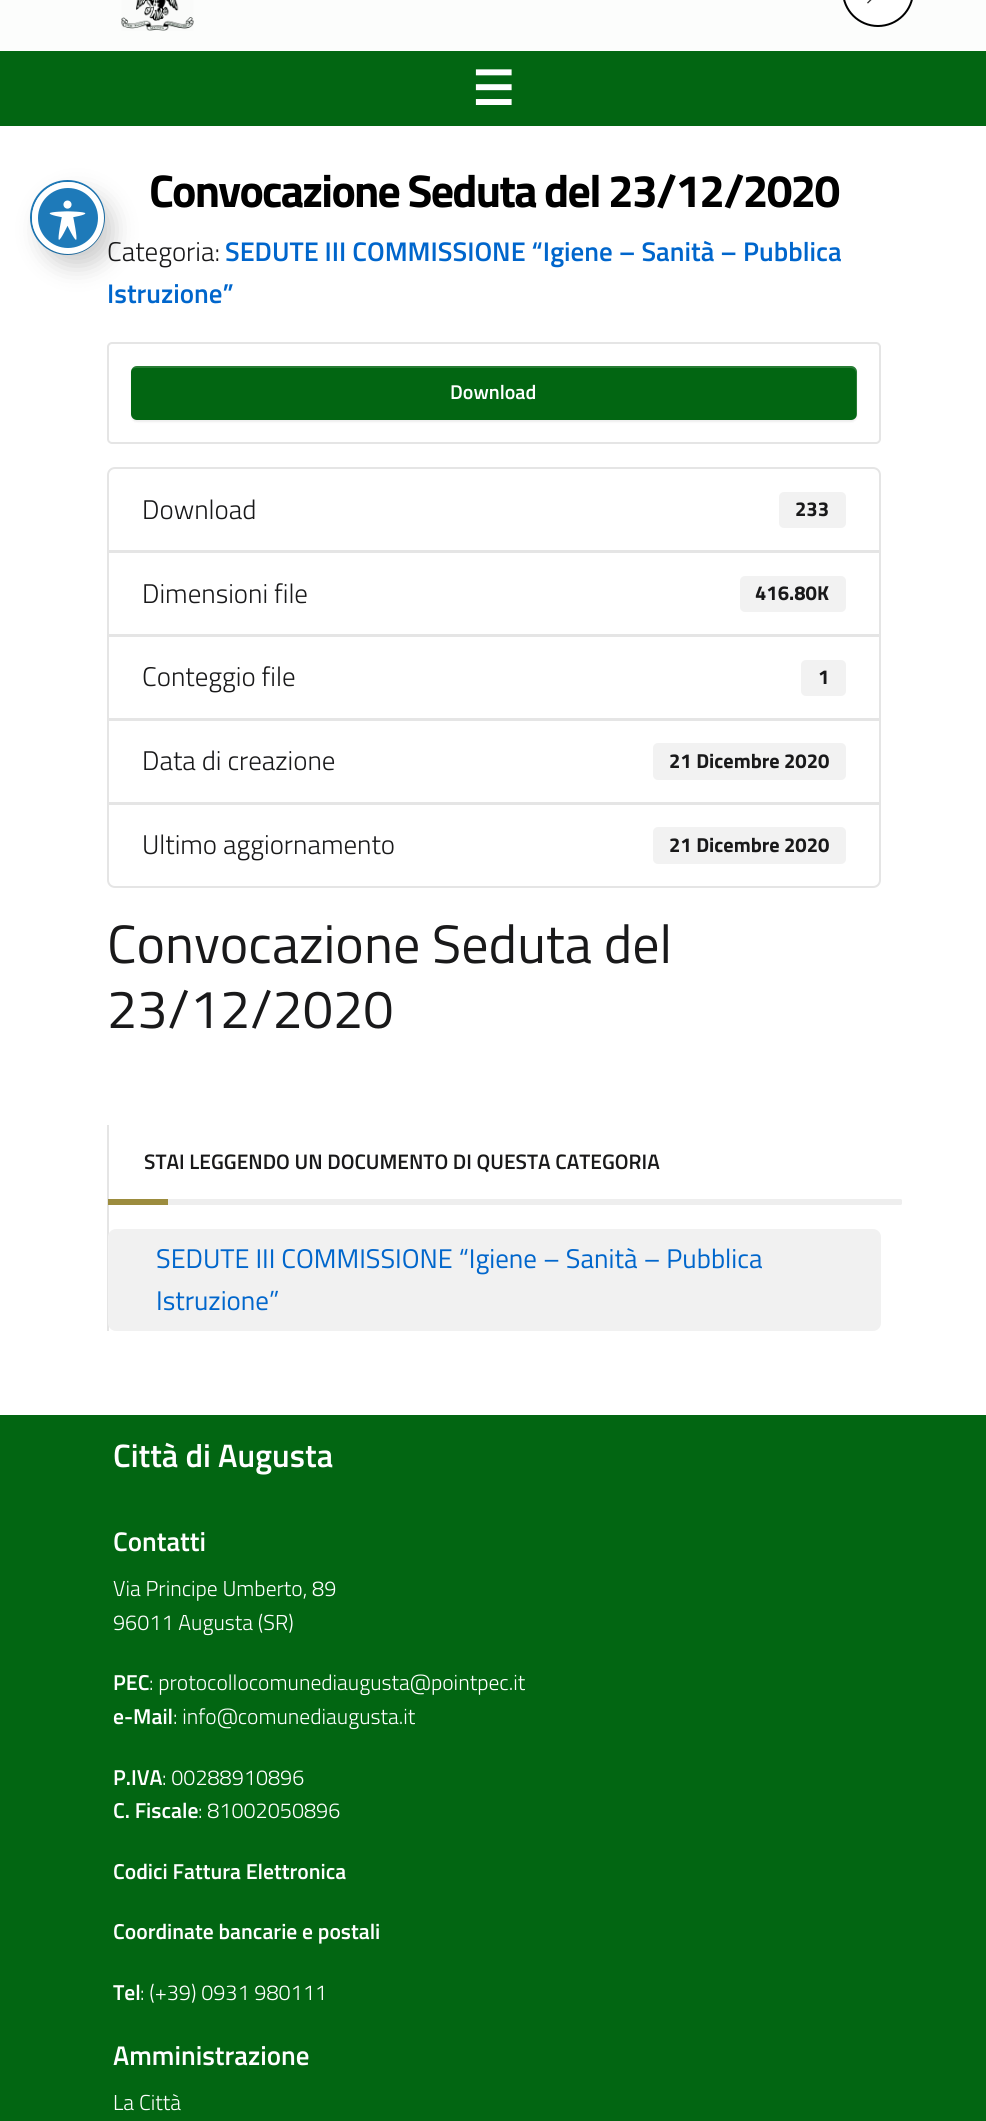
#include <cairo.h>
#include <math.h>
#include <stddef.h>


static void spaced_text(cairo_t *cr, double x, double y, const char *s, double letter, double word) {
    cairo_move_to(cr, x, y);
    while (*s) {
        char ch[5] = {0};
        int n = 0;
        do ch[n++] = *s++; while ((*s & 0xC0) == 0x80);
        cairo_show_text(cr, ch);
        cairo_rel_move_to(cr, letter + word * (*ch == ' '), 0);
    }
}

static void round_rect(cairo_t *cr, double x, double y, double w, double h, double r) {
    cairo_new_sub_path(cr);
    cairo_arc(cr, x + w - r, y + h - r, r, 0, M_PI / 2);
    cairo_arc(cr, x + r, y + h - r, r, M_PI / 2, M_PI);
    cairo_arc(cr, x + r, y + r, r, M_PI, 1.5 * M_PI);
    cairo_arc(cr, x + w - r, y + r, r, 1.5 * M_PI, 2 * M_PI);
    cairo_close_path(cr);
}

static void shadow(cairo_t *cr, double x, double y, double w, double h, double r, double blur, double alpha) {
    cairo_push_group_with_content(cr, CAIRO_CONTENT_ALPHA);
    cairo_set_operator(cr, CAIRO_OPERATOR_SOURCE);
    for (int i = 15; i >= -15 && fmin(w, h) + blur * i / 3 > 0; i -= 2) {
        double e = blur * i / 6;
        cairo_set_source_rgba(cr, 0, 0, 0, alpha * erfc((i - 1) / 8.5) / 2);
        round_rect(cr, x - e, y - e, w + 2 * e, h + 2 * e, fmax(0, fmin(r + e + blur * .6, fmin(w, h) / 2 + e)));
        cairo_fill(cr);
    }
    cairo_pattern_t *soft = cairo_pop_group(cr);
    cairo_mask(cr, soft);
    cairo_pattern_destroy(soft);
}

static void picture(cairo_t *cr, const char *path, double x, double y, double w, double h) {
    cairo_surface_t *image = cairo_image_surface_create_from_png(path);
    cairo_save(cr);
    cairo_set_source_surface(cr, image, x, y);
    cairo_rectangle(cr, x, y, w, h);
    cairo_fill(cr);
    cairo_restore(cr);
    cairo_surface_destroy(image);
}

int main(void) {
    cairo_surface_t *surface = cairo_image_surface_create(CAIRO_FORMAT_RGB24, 986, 2121);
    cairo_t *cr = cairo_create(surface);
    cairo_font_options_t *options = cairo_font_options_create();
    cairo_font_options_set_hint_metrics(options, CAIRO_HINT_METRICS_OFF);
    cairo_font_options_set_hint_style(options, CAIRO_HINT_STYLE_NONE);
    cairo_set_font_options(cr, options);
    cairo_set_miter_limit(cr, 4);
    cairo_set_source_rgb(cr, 1, 1, 1);
    cairo_paint(cr);
    cairo_arc(cr, 67.5, 217.5, 36.5, 0, 2 * M_PI);
    cairo_set_source_rgb(cr, 0.118, 0.478, 0.725);
    cairo_stroke(cr);
    cairo_set_source_rgb(cr, 0, 0, 0);
    shadow(cr, 41, 194, 72, 72, 36, 12, 0.2);
    cairo_set_source_rgb(cr, 0.118, 0.478, 0.725);
    cairo_arc(cr, 68, 218, 33, 0, 2 * M_PI);
    cairo_fill_preserve(cr);
    cairo_set_source_rgb(cr, 1, 1, 1);
    cairo_set_line_width(cr, 6);
    cairo_stroke(cr);
    picture(cr, "img1.png", 49, 200, 37, 40);
    cairo_set_source_rgb(cr, 0.008, 0.4, 0.071);
    cairo_rectangle(cr, 0, 51, 986, 75);
    cairo_fill(cr);
    cairo_set_source_rgb(cr, 0.988, 0.992, 0.988);
    cairo_rectangle(cr, 0, 0, 986, 51);
    cairo_fill(cr);
    picture(cr, "img2.png", 121, 0, 73, 31);
    cairo_set_source_rgb(cr, 1, 1, 1);
    round_rect(cr, 843, -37, 70, 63, 35);
    cairo_fill_preserve(cr);
    cairo_set_source_rgb(cr, 0, 0, 0);
    cairo_set_line_width(cr, 2);
    cairo_stroke(cr);
    picture(cr, "img3.png", 867, 0, 5, 4);
    cairo_select_font_face(cr, "DejaVu Sans", CAIRO_FONT_SLANT_NORMAL, CAIRO_FONT_WEIGHT_BOLD);
    cairo_set_font_size(cr, 47);
    cairo_set_source_rgb(cr, 1, 1, 1);
    cairo_move_to(cr, 472, 105);
    cairo_show_text(cr, "☰");
    cairo_select_font_face(cr, "Titillium Web", CAIRO_FONT_SLANT_NORMAL, CAIRO_FONT_WEIGHT_BOLD);
    cairo_set_font_size(cr, 45.9);
    cairo_set_source_rgb(cr, 0, 0, 0);
    spaced_text(cr, 149, 207, "Convocazione Seduta del 23/12/2020", -1.8, 0);
    cairo_select_font_face(cr, "Titillium Web Light", CAIRO_FONT_SLANT_NORMAL, CAIRO_FONT_WEIGHT_NORMAL);
    cairo_set_font_size(cr, 27);
    cairo_set_source_rgb(cr, 0.098, 0.098, 0.102);
    cairo_move_to(cr, 107, 261);
    cairo_show_text(cr, "Categoria:");
    cairo_select_font_face(cr, "Titillium Web SemiBold", CAIRO_FONT_SLANT_NORMAL, CAIRO_FONT_WEIGHT_NORMAL);
    cairo_set_source_rgb(cr, 0, 0.4, 0.8);
    cairo_move_to(cr, 225, 261);
    cairo_show_text(cr, "SEDUTE III COMMISSIONE “Igiene – Sanità – Pubblica");
    cairo_move_to(cr, 107, 303);
    cairo_show_text(cr, "Istruzione”");
    round_rect(cr, 108, 343, 772, 100, 4);
    cairo_set_source_rgb(cr, 0.898, 0.898, 0.898);
    cairo_stroke(cr);
    cairo_set_source_rgb(cr, 0, 0, 0);
    shadow(cr, 131, 368, 726, 54, 6, 1, 0.07);
    cairo_set_source_rgb(cr, 0.008, 0.4, 0.071);
    round_rect(cr, 131, 366, 726, 54, 6);
    cairo_fill(cr);
    cairo_set_source_rgba(cr, 1, 1, 1, 0.15);
    cairo_new_path(cr);
    cairo_move_to(cr, 136, 368);
    cairo_line_to(cr, 850, 368);
    cairo_curve_to(cr, 854, 368, 856, 370, 856, 374);
    cairo_line_to(cr, 856, 418);
    cairo_curve_to(cr, 857, 417, 857, 415, 857, 414);
    cairo_line_to(cr, 857, 372);
    cairo_curve_to(cr, 857, 369, 854, 366, 851, 366);
    cairo_line_to(cr, 137, 366);
    cairo_curve_to(cr, 134, 366, 132, 368, 131, 370);
    cairo_curve_to(cr, 132, 369, 134, 368, 136, 368);
    cairo_close_path(cr);
    cairo_fill(cr);
    cairo_set_font_size(cr, 20);
    cairo_set_source_rgb(cr, 1, 1, 1);
    cairo_move_to(cr, 450, 399);
    cairo_show_text(cr, "Download");
    cairo_new_path(cr);
    cairo_move_to(cr, 115, 468);
    cairo_line_to(cr, 873, 468);
    cairo_curve_to(cr, 877, 468, 880, 471, 880, 475);
    cairo_line_to(cr, 880, 551);
    cairo_line_to(cr, 108, 551);
    cairo_line_to(cr, 108, 475);
    cairo_curve_to(cr, 108, 471, 111, 468, 115, 468);
    cairo_close_path(cr);
    cairo_set_source_rgb(cr, 0.898, 0.898, 0.898);
    cairo_stroke(cr);
    cairo_select_font_face(cr, "Titillium Web Light", CAIRO_FONT_SLANT_NORMAL, CAIRO_FONT_WEIGHT_NORMAL);
    cairo_set_font_size(cr, 27);
    cairo_set_source_rgb(cr, 0.098, 0.098, 0.102);
    cairo_move_to(cr, 142, 519);
    cairo_show_text(cr, "Download");
    cairo_set_source_rgb(cr, 0.949, 0.949, 0.949);
    round_rect(cr, 779, 492, 67, 36, 5);
    cairo_fill(cr);
    cairo_select_font_face(cr, "Titillium Web", CAIRO_FONT_SLANT_NORMAL, CAIRO_FONT_WEIGHT_BOLD);
    cairo_set_font_size(cr, 20.25);
    cairo_set_source_rgb(cr, 0.098, 0.098, 0.102);
    cairo_move_to(cr, 795, 516);
    cairo_show_text(cr, "233");
    cairo_rectangle(cr, 108, 552, 772, 83);
    cairo_set_source_rgb(cr, 0.898, 0.898, 0.898);
    cairo_stroke(cr);
    cairo_select_font_face(cr, "Titillium Web Light", CAIRO_FONT_SLANT_NORMAL, CAIRO_FONT_WEIGHT_NORMAL);
    cairo_set_font_size(cr, 27);
    cairo_set_source_rgb(cr, 0.098, 0.098, 0.102);
    cairo_move_to(cr, 142, 603);
    cairo_show_text(cr, "Dimensioni file");
    cairo_set_source_rgb(cr, 0.949, 0.949, 0.949);
    round_rect(cr, 740, 576, 106, 36, 5);
    cairo_fill(cr);
    cairo_select_font_face(cr, "Titillium Web", CAIRO_FONT_SLANT_NORMAL, CAIRO_FONT_WEIGHT_BOLD);
    cairo_set_font_size(cr, 20.25);
    cairo_set_source_rgb(cr, 0.098, 0.098, 0.102);
    cairo_move_to(cr, 755, 600);
    cairo_show_text(cr, "416.80K");
    cairo_rectangle(cr, 108, 636, 772, 83);
    cairo_set_source_rgb(cr, 0.898, 0.898, 0.898);
    cairo_stroke(cr);
    cairo_select_font_face(cr, "Titillium Web Light", CAIRO_FONT_SLANT_NORMAL, CAIRO_FONT_WEIGHT_NORMAL);
    cairo_set_font_size(cr, 27);
    cairo_set_source_rgb(cr, 0.098, 0.098, 0.102);
    cairo_move_to(cr, 142, 686);
    cairo_show_text(cr, "Conteggio file");
    cairo_set_source_rgb(cr, 0.949, 0.949, 0.949);
    round_rect(cr, 801, 660, 45, 36, 5);
    cairo_fill(cr);
    cairo_select_font_face(cr, "Titillium Web", CAIRO_FONT_SLANT_NORMAL, CAIRO_FONT_WEIGHT_BOLD);
    cairo_set_font_size(cr, 20.25);
    cairo_set_source_rgb(cr, 0.098, 0.098, 0.102);
    cairo_move_to(cr, 818, 684);
    cairo_show_text(cr, "1");
    cairo_rectangle(cr, 108, 720, 772, 83);
    cairo_set_source_rgb(cr, 0.898, 0.898, 0.898);
    cairo_stroke(cr);
    cairo_select_font_face(cr, "Titillium Web Light", CAIRO_FONT_SLANT_NORMAL, CAIRO_FONT_WEIGHT_NORMAL);
    cairo_set_font_size(cr, 27);
    cairo_set_source_rgb(cr, 0.098, 0.098, 0.102);
    cairo_move_to(cr, 142, 770);
    cairo_show_text(cr, "Data di creazione");
    cairo_set_source_rgb(cr, 0.949, 0.949, 0.949);
    round_rect(cr, 653, 743, 193, 37, 5);
    cairo_fill(cr);
    cairo_select_font_face(cr, "Titillium Web", CAIRO_FONT_SLANT_NORMAL, CAIRO_FONT_WEIGHT_BOLD);
    cairo_set_font_size(cr, 20.25);
    cairo_set_source_rgb(cr, 0.098, 0.098, 0.102);
    cairo_move_to(cr, 669, 768);
    cairo_show_text(cr, "21 Dicembre 2020");
    cairo_set_source_rgb(cr, 1, 1, 1);
    cairo_new_path(cr);
    cairo_move_to(cr, 108, 804);
    cairo_line_to(cr, 880, 804);
    cairo_line_to(cr, 880, 880);
    cairo_curve_to(cr, 880, 884, 877, 887, 873, 887);
    cairo_line_to(cr, 115, 887);
    cairo_curve_to(cr, 111, 887, 108, 884, 108, 880);
    cairo_close_path(cr);
    cairo_fill_preserve(cr);
    cairo_set_source_rgb(cr, 0.898, 0.898, 0.898);
    cairo_stroke(cr);
    cairo_select_font_face(cr, "Titillium Web Light", CAIRO_FONT_SLANT_NORMAL, CAIRO_FONT_WEIGHT_NORMAL);
    cairo_set_font_size(cr, 27);
    cairo_set_source_rgb(cr, 0.098, 0.098, 0.102);
    cairo_move_to(cr, 142, 854);
    cairo_show_text(cr, "Ultimo aggiornamento");
    cairo_set_source_rgb(cr, 0.949, 0.949, 0.949);
    round_rect(cr, 653, 827, 193, 37, 5);
    cairo_fill(cr);
    cairo_select_font_face(cr, "Titillium Web", CAIRO_FONT_SLANT_NORMAL, CAIRO_FONT_WEIGHT_BOLD);
    cairo_set_font_size(cr, 20.25);
    cairo_set_source_rgb(cr, 0.098, 0.098, 0.102);
    cairo_move_to(cr, 669, 852);
    cairo_show_text(cr, "21 Dicembre 2020");
    cairo_select_font_face(cr, "Titillium Web", CAIRO_FONT_SLANT_NORMAL, CAIRO_FONT_WEIGHT_NORMAL);
    cairo_set_font_size(cr, 54);
    cairo_move_to(cr, 107, 963);
    cairo_show_text(cr, "Convocazione Seduta del");
    cairo_move_to(cr, 107, 1028);
    cairo_show_text(cr, "23/12/2020");
    cairo_set_source_rgb(cr, 0.898, 0.898, 0.898);
    cairo_rectangle(cr, 107, 1125, 2, 206);
    cairo_fill(cr);
    cairo_select_font_face(cr, "Titillium Web SemiBold", CAIRO_FONT_SLANT_NORMAL, CAIRO_FONT_WEIGHT_NORMAL);
    cairo_set_font_size(cr, 21);
    cairo_set_source_rgb(cr, 0.098, 0.098, 0.102);
    cairo_move_to(cr, 144, 1169);
    cairo_show_text(cr, "STAI LEGGENDO UN DOCUMENTO DI QUESTA CATEGORIA");
    cairo_set_source_rgb(cr, 0.933, 0.933, 0.933);
    round_rect(cr, 108, 1199, 794, 6, 1.5);
    cairo_fill(cr);
    cairo_set_source_rgb(cr, 0.612, 0.549, 0.243);
    cairo_rectangle(cr, 108, 1199, 60, 6);
    cairo_fill(cr);
    cairo_set_source_rgb(cr, 0.945, 0.945, 0.945);
    round_rect(cr, 108, 1229, 773, 102, 8);
    cairo_fill(cr);
    cairo_select_font_face(cr, "Titillium Web", CAIRO_FONT_SLANT_NORMAL, CAIRO_FONT_WEIGHT_NORMAL);
    cairo_set_font_size(cr, 27);
    cairo_set_source_rgb(cr, 0, 0.4, 0.8);
    cairo_move_to(cr, 156, 1268);
    cairo_show_text(cr, "SEDUTE III COMMISSIONE “Igiene – Sanità – Pubblica");
    cairo_move_to(cr, 156, 1310);
    cairo_show_text(cr, "Istruzione”");
    cairo_set_source_rgb(cr, 0.008, 0.4, 0.071);
    cairo_rectangle(cr, 0, 1415, 986, 706);
    cairo_fill(cr);
    cairo_select_font_face(cr, "Titillium Web SemiBold", CAIRO_FONT_SLANT_NORMAL, CAIRO_FONT_WEIGHT_NORMAL);
    cairo_set_font_size(cr, 32.5);
    cairo_set_source_rgb(cr, 1, 1, 1);
    cairo_move_to(cr, 113, 1467);
    cairo_show_text(cr, "Città di Augusta");
    cairo_set_font_size(cr, 27);
    cairo_move_to(cr, 113, 1551);
    cairo_show_text(cr, "Contatti");
    cairo_select_font_face(cr, "Titillium Web Light", CAIRO_FONT_SLANT_NORMAL, CAIRO_FONT_WEIGHT_NORMAL);
    cairo_set_font_size(cr, 21.6);
    cairo_move_to(cr, 113, 1596);
    cairo_show_text(cr, "Via Principe Umberto, 89");
    cairo_move_to(cr, 113, 1630);
    cairo_show_text(cr, "96011 Augusta (SR)");
    cairo_select_font_face(cr, "Titillium Web SemiBold", CAIRO_FONT_SLANT_NORMAL, CAIRO_FONT_WEIGHT_NORMAL);
    cairo_move_to(cr, 113, 1690);
    cairo_show_text(cr, "PEC");
    cairo_select_font_face(cr, "Titillium Web Light", CAIRO_FONT_SLANT_NORMAL, CAIRO_FONT_WEIGHT_NORMAL);
    cairo_move_to(cr, 149, 1690);
    cairo_show_text(cr, ": protocollocomunediaugusta@pointpec.it");
    cairo_select_font_face(cr, "Titillium Web SemiBold", CAIRO_FONT_SLANT_NORMAL, CAIRO_FONT_WEIGHT_NORMAL);
    cairo_move_to(cr, 113, 1724);
    cairo_show_text(cr, "e-Mail");
    cairo_select_font_face(cr, "Titillium Web Light", CAIRO_FONT_SLANT_NORMAL, CAIRO_FONT_WEIGHT_NORMAL);
    cairo_move_to(cr, 173, 1724);
    cairo_show_text(cr, ": info@comunediaugusta.it");
    cairo_select_font_face(cr, "Titillium Web SemiBold", CAIRO_FONT_SLANT_NORMAL, CAIRO_FONT_WEIGHT_NORMAL);
    cairo_move_to(cr, 113, 1785);
    cairo_show_text(cr, "P.IVA");
    cairo_select_font_face(cr, "Titillium Web Light", CAIRO_FONT_SLANT_NORMAL, CAIRO_FONT_WEIGHT_NORMAL);
    cairo_move_to(cr, 162, 1785);
    cairo_show_text(cr, ": 00288910896");
    cairo_select_font_face(cr, "Titillium Web SemiBold", CAIRO_FONT_SLANT_NORMAL, CAIRO_FONT_WEIGHT_NORMAL);
    cairo_move_to(cr, 113, 1818);
    cairo_show_text(cr, "C. Fiscale");
    cairo_select_font_face(cr, "Titillium Web Light", CAIRO_FONT_SLANT_NORMAL, CAIRO_FONT_WEIGHT_NORMAL);
    cairo_move_to(cr, 198, 1818);
    cairo_show_text(cr, ": 81002050896");
    cairo_select_font_face(cr, "Titillium Web SemiBold", CAIRO_FONT_SLANT_NORMAL, CAIRO_FONT_WEIGHT_NORMAL);
    cairo_move_to(cr, 113, 1879);
    cairo_show_text(cr, "Codici Fattura Elettronica");
    cairo_move_to(cr, 113, 1939);
    cairo_show_text(cr, "Coordinate bancarie e postali");
    cairo_move_to(cr, 113, 2000);
    cairo_show_text(cr, "Tel");
    cairo_select_font_face(cr, "Titillium Web Light", CAIRO_FONT_SLANT_NORMAL, CAIRO_FONT_WEIGHT_NORMAL);
    cairo_move_to(cr, 140, 2000);
    cairo_show_text(cr, ": (+39) 0931 980111");
    cairo_select_font_face(cr, "Titillium Web SemiBold", CAIRO_FONT_SLANT_NORMAL, CAIRO_FONT_WEIGHT_NORMAL);
    cairo_set_font_size(cr, 27);
    cairo_move_to(cr, 113, 2065);
    cairo_show_text(cr, "Amministrazione");
    cairo_select_font_face(cr, "Titillium Web Light", CAIRO_FONT_SLANT_NORMAL, CAIRO_FONT_WEIGHT_NORMAL);
    cairo_set_font_size(cr, 21.6);
    cairo_move_to(cr, 113, 2110);
    cairo_show_text(cr, "La Città");
    cairo_surface_write_to_png(surface, "page.png");
    cairo_font_options_destroy(options);
    cairo_destroy(cr);
    cairo_surface_destroy(surface);
    return 0;
}
